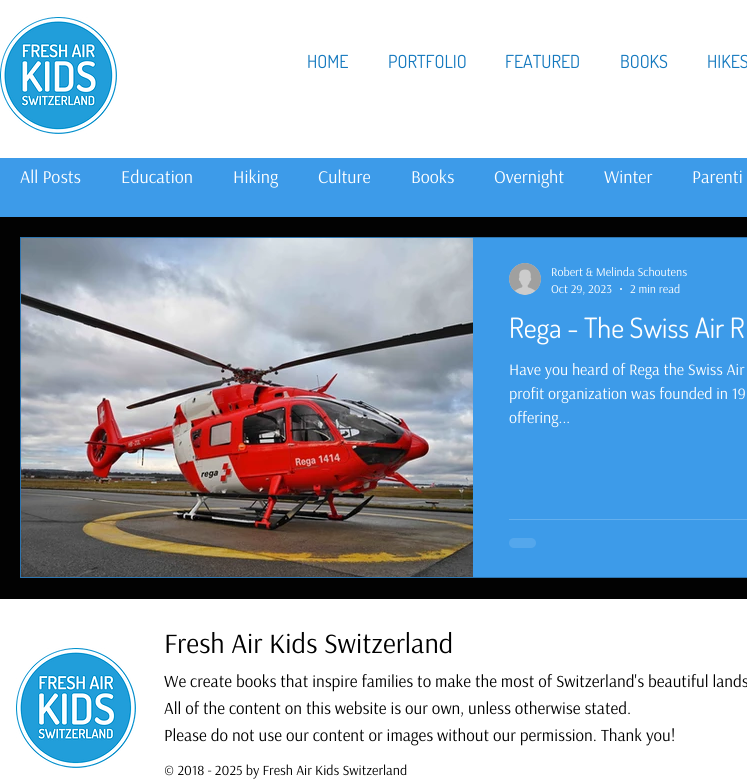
#include <cairo.h>
#include <math.h>
#include <stddef.h>


static void round_rect(cairo_t *cr, double x, double y, double w, double h, double r) {
    cairo_new_sub_path(cr);
    cairo_arc(cr, x + w - r, y + h - r, r, 0, M_PI / 2);
    cairo_arc(cr, x + r, y + h - r, r, M_PI / 2, M_PI);
    cairo_arc(cr, x + r, y + r, r, M_PI, 1.5 * M_PI);
    cairo_arc(cr, x + w - r, y + r, r, 1.5 * M_PI, 2 * M_PI);
    cairo_close_path(cr);
}

static void picture(cairo_t *cr, const char *path, double x, double y, double w, double h) {
    cairo_surface_t *image = cairo_image_surface_create_from_png(path);
    cairo_save(cr);
    cairo_set_source_surface(cr, image, x, y);
    cairo_rectangle(cr, x, y, w, h);
    cairo_fill(cr);
    cairo_restore(cr);
    cairo_surface_destroy(image);
}

int main(void) {
    cairo_surface_t *surface = cairo_image_surface_create(CAIRO_FORMAT_RGB24, 747, 781);
    cairo_t *cr = cairo_create(surface);
    cairo_font_options_t *options = cairo_font_options_create();
    cairo_font_options_set_hint_metrics(options, CAIRO_HINT_METRICS_OFF);
    cairo_font_options_set_hint_style(options, CAIRO_HINT_STYLE_NONE);
    cairo_set_font_options(cr, options);
    cairo_set_miter_limit(cr, 4);
    cairo_set_source_rgb(cr, 1, 1, 1);
    cairo_paint(cr);
    picture(cr, "img1.png", 0, 17, 117, 117);
    cairo_select_font_face(cr, "Dosis", CAIRO_FONT_SLANT_NORMAL, CAIRO_FONT_WEIGHT_NORMAL);
    cairo_set_font_size(cr, 18);
    cairo_set_source_rgb(cr, 0.078, 0.471, 0.745);
    cairo_move_to(cr, 307, 68);
    cairo_show_text(cr, "HOME");
    cairo_move_to(cr, 388, 68);
    cairo_show_text(cr, "PORTFOLIO");
    cairo_move_to(cr, 505, 68);
    cairo_show_text(cr, "FEATURED");
    cairo_move_to(cr, 620, 68);
    cairo_show_text(cr, "BOOKS");
    cairo_move_to(cr, 707, 68);
    cairo_show_text(cr, "HIKES");
    cairo_set_source_rgb(cr, 0.008, 0.008, 0.008);
    cairo_rectangle(cr, 0, 217, 747, 382);
    cairo_fill(cr);
    cairo_set_source_rgb(cr, 0.239, 0.608, 0.914);
    cairo_rectangle(cr, 0, 158, 747, 59);
    cairo_fill(cr);
    cairo_select_font_face(cr, "Arsenal", CAIRO_FONT_SLANT_NORMAL, CAIRO_FONT_WEIGHT_NORMAL);
    cairo_set_source_rgb(cr, 1, 1, 1);
    cairo_move_to(cr, 20, 183);
    cairo_show_text(cr, "All Posts");
    cairo_move_to(cr, 121, 183);
    cairo_show_text(cr, "Education");
    cairo_move_to(cr, 233, 183);
    cairo_show_text(cr, "Hiking");
    cairo_move_to(cr, 318, 183);
    cairo_show_text(cr, "Culture");
    cairo_move_to(cr, 411, 183);
    cairo_show_text(cr, "Books");
    cairo_move_to(cr, 494, 183);
    cairo_show_text(cr, "Overnight");
    cairo_move_to(cr, 604, 183);
    cairo_show_text(cr, "Winter");
    cairo_move_to(cr, 692, 183);
    cairo_show_text(cr, "Parenti");
    cairo_rectangle(cr, 20.5, 237.5, 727, 340);
    cairo_set_source_rgb(cr, 0.18, 0.459, 0.686);
    cairo_set_line_width(cr, 1);
    cairo_stroke(cr);
    picture(cr, "img2.png", 21, 238, 452, 339);
    cairo_set_source_rgb(cr, 0.239, 0.608, 0.914);
    cairo_rectangle(cr, 473, 238, 274, 339);
    cairo_fill(cr);
    picture(cr, "img3.png", 509, 263, 32, 32);
    cairo_set_font_size(cr, 12);
    cairo_set_source_rgb(cr, 1, 1, 1);
    cairo_move_to(cr, 551, 276);
    cairo_show_text(cr, "Robert & Melinda Schoutens");
    cairo_move_to(cr, 551, 293);
    cairo_show_text(cr, "Oct 29, 2023");
    cairo_new_path(cr);
    cairo_arc(cr, 621, 289, 1, 0, 2 * M_PI);
    cairo_fill(cr);
    cairo_move_to(cr, 630, 293);
    cairo_show_text(cr, "2 min read");
    cairo_select_font_face(cr, "Dosis", CAIRO_FONT_SLANT_NORMAL, CAIRO_FONT_WEIGHT_NORMAL);
    cairo_set_font_size(cr, 28);
    cairo_move_to(cr, 509, 338);
    cairo_show_text(cr, "Rega - The Swiss Air R");
    cairo_select_font_face(cr, "Arsenal", CAIRO_FONT_SLANT_NORMAL, CAIRO_FONT_WEIGHT_NORMAL);
    cairo_set_font_size(cr, 16);
    cairo_move_to(cr, 509, 375);
    cairo_show_text(cr, "Have you heard of Rega the Swiss Air");
    cairo_move_to(cr, 509, 399);
    cairo_show_text(cr, "profit organization was founded in 19");
    cairo_move_to(cr, 509, 423);
    cairo_show_text(cr, "offering...");
    cairo_set_source_rgb(cr, 0.392, 0.686, 0.929);
    cairo_rectangle(cr, 509, 519, 238, 1);
    cairo_fill(cr);
    cairo_set_source_rgb(cr, 0.329, 0.655, 0.925);
    round_rect(cr, 509, 538, 27, 10, 5);
    cairo_fill(cr);
    cairo_set_font_size(cr, 28);
    cairo_set_source_rgb(cr, 0, 0, 0);
    cairo_move_to(cr, 164, 653);
    cairo_show_text(cr, "Fresh Air Kids Switzerland");
    picture(cr, "img4.png", 16, 648, 120, 120);
    cairo_set_font_size(cr, 17);
    cairo_move_to(cr, 164, 687);
    cairo_show_text(cr, "We create books that inspire families to make the most of Switzerland's beautiful lands");
    cairo_move_to(cr, 164, 714);
    cairo_show_text(cr, "All of the content on this website is our own, unless otherwise stated.");
    cairo_move_to(cr, 164, 741);
    cairo_show_text(cr, "Please do not use our content or images without our permission. Thank you!");
    cairo_set_font_size(cr, 14);
    cairo_move_to(cr, 164, 775);
    cairo_show_text(cr, "© 2018 - 2025 by Fresh Air Kids Switzerland");
    cairo_surface_write_to_png(surface, "page.png");
    cairo_font_options_destroy(options);
    cairo_destroy(cr);
    cairo_surface_destroy(surface);
    return 0;
}
